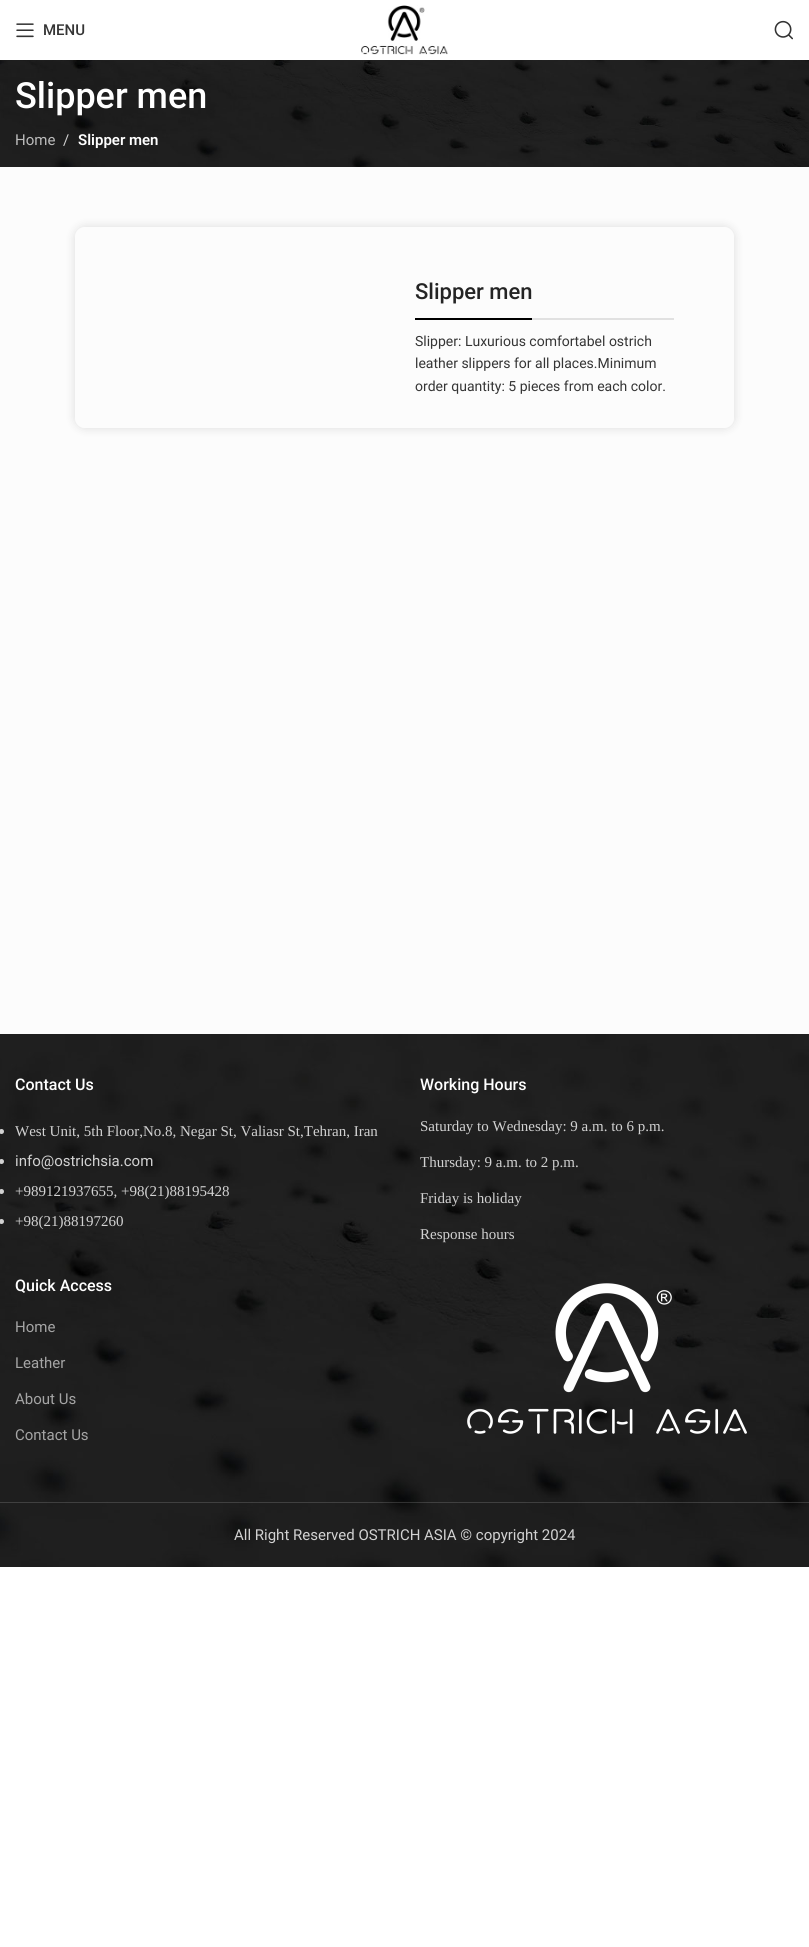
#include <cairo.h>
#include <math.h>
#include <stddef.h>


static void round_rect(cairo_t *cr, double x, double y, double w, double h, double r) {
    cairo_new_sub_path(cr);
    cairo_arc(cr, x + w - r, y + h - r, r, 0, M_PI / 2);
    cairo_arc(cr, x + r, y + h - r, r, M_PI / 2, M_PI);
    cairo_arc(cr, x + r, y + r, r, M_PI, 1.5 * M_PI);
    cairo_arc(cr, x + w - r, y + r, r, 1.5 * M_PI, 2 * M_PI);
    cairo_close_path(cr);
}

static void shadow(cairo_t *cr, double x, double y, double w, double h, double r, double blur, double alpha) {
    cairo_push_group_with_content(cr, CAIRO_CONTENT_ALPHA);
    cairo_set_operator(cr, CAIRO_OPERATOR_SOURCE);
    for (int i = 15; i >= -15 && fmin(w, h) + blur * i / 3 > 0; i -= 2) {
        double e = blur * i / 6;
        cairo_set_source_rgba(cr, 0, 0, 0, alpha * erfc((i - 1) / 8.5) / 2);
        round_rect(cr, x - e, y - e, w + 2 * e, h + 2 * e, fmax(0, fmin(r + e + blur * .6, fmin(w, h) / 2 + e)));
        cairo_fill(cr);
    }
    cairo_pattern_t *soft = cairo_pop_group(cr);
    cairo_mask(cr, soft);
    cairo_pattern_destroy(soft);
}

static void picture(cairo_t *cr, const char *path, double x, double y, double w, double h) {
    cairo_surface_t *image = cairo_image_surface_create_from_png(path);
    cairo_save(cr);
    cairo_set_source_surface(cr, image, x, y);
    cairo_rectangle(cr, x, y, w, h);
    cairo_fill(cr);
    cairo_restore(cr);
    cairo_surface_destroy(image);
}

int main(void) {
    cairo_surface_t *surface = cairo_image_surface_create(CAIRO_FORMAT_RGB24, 809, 1947);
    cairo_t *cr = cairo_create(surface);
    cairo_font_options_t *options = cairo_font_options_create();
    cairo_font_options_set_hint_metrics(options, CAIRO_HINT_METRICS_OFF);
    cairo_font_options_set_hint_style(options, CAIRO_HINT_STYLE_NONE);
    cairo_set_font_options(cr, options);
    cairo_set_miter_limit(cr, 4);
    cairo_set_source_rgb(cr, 1, 1, 1);
    cairo_paint(cr);
    picture(cr, "img1.png", 16, 23, 18, 15);
    cairo_select_font_face(cr, "Roboto Medium", CAIRO_FONT_SLANT_NORMAL, CAIRO_FONT_WEIGHT_NORMAL);
    cairo_set_font_size(cr, 15);
    cairo_set_source_rgb(cr, 0.208, 0.208, 0.208);
    cairo_move_to(cr, 43, 35);
    cairo_show_text(cr, "MENU");
    picture(cr, "img2.png", 361, 5, 87, 50);
    picture(cr, "img3.png", 774, 20, 19, 20);
    cairo_set_source_rgb(cr, 0.988, 0.988, 0.988);
    cairo_rectangle(cr, 0, 167, 809, 867);
    cairo_fill(cr);
    picture(cr, "img4.png", 0, 60, 809, 107);
    cairo_set_font_size(cr, 36);
    cairo_set_source_rgb(cr, 1, 1, 1);
    cairo_move_to(cr, 15, 108);
    cairo_show_text(cr, "Slipper men");
    cairo_select_font_face(cr, "Roboto", CAIRO_FONT_SLANT_NORMAL, CAIRO_FONT_WEIGHT_NORMAL);
    cairo_set_font_size(cr, 15);
    cairo_set_source_rgb(cr, 0.737, 0.737, 0.737);
    cairo_move_to(cr, 15, 145);
    cairo_show_text(cr, "Home");
    cairo_set_source_rgb(cr, 0.824, 0.824, 0.824);
    cairo_move_to(cr, 63, 145);
    cairo_show_text(cr, "/");
    cairo_select_font_face(cr, "Roboto SemiBold", CAIRO_FONT_SLANT_NORMAL, CAIRO_FONT_WEIGHT_NORMAL);
    cairo_set_source_rgb(cr, 1, 1, 1);
    cairo_move_to(cr, 78, 145);
    cairo_show_text(cr, "Slipper men");
    cairo_save(cr);
    cairo_set_fill_rule(cr, CAIRO_FILL_RULE_EVEN_ODD);
    cairo_new_path(cr);
    cairo_move_to(cr, 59, 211);
    cairo_line_to(cr, 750, 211);
    cairo_line_to(cr, 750, 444);
    cairo_line_to(cr, 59, 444);
    cairo_close_path(cr);
    cairo_move_to(cr, 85, 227);
    cairo_line_to(cr, 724, 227);
    cairo_curve_to(cr, 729.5, 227, 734, 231.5, 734, 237);
    cairo_line_to(cr, 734, 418);
    cairo_curve_to(cr, 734, 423.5, 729.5, 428, 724, 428);
    cairo_line_to(cr, 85, 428);
    cairo_curve_to(cr, 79.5, 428, 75, 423.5, 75, 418);
    cairo_line_to(cr, 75, 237);
    cairo_curve_to(cr, 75, 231.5, 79.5, 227, 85, 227);
    cairo_close_path(cr);
    cairo_clip(cr);
    cairo_set_source_rgb(cr, 0, 0, 0);
    shadow(cr, 75, 227, 659, 201, 10, 5, 0.13);
    cairo_restore(cr);
    cairo_set_source_rgb(cr, 0.882, 0.882, 0.882);
    cairo_rectangle(cr, 532, 318, 142, 2);
    cairo_fill(cr);
    cairo_set_source_rgb(cr, 0, 0, 0);
    cairo_rectangle(cr, 415, 318, 117, 2);
    cairo_fill(cr);
    cairo_select_font_face(cr, "Roboto Medium", CAIRO_FONT_SLANT_NORMAL, CAIRO_FONT_WEIGHT_NORMAL);
    cairo_set_font_size(cr, 22);
    cairo_set_source_rgb(cr, 0.141, 0.141, 0.141);
    cairo_move_to(cr, 415, 299);
    cairo_show_text(cr, "Slipper men");
    cairo_select_font_face(cr, "Roboto", CAIRO_FONT_SLANT_NORMAL, CAIRO_FONT_WEIGHT_NORMAL);
    cairo_set_font_size(cr, 14);
    cairo_set_source_rgb(cr, 0.208, 0.208, 0.208);
    cairo_move_to(cr, 415, 346);
    cairo_show_text(cr, "Slipper: Luxurious comfortabel ostrich");
    cairo_move_to(cr, 415, 368);
    cairo_show_text(cr, "leather slippers for all places.Minimum");
    cairo_move_to(cr, 415, 391);
    cairo_show_text(cr, "order quantity: 5 pieces from each color.");
    picture(cr, "img5.png", 0, 1034, 809, 533);
    cairo_select_font_face(cr, "Roboto Medium", CAIRO_FONT_SLANT_NORMAL, CAIRO_FONT_WEIGHT_NORMAL);
    cairo_set_font_size(cr, 16);
    cairo_set_source_rgb(cr, 1, 1, 1);
    cairo_move_to(cr, 15, 1090);
    cairo_show_text(cr, "Contact Us");
    cairo_set_source_rgb(cr, 0.824, 0.824, 0.824);
    cairo_new_path(cr);
    cairo_arc(cr, 1.5, 1131.5, 2.5, 0, 2 * M_PI);
    cairo_fill(cr);
    cairo_select_font_face(cr, "Liberation Serif", CAIRO_FONT_SLANT_NORMAL, CAIRO_FONT_WEIGHT_NORMAL);
    cairo_set_font_size(cr, 15);
    cairo_move_to(cr, 15, 1136);
    cairo_show_text(cr, "West Unit, 5th Floor,No.8, Negar St, Valiasr St,Tehran, Iran");
    cairo_new_path(cr);
    cairo_arc(cr, 1.5, 1161.5, 2.5, 0, 2 * M_PI);
    cairo_fill(cr);
    cairo_select_font_face(cr, "Roboto", CAIRO_FONT_SLANT_NORMAL, CAIRO_FONT_WEIGHT_NORMAL);
    cairo_move_to(cr, 15, 1166);
    cairo_show_text(cr, "info@ostrichsia.com");
    cairo_new_path(cr);
    cairo_arc(cr, 1.5, 1191.5, 2.5, 0, 2 * M_PI);
    cairo_fill(cr);
    cairo_select_font_face(cr, "Liberation Serif", CAIRO_FONT_SLANT_NORMAL, CAIRO_FONT_WEIGHT_NORMAL);
    cairo_move_to(cr, 15, 1196);
    cairo_show_text(cr, "+989121937655, +98(21)88195428");
    cairo_new_path(cr);
    cairo_arc(cr, 1.5, 1221.5, 2.5, 0, 2 * M_PI);
    cairo_fill(cr);
    cairo_move_to(cr, 15, 1226);
    cairo_show_text(cr, "+98(21)88197260");
    cairo_select_font_face(cr, "Roboto Medium", CAIRO_FONT_SLANT_NORMAL, CAIRO_FONT_WEIGHT_NORMAL);
    cairo_set_font_size(cr, 16);
    cairo_set_source_rgb(cr, 1, 1, 1);
    cairo_move_to(cr, 420, 1090);
    cairo_show_text(cr, "Working Hours");
    cairo_select_font_face(cr, "Liberation Serif", CAIRO_FONT_SLANT_NORMAL, CAIRO_FONT_WEIGHT_NORMAL);
    cairo_set_font_size(cr, 15);
    cairo_set_source_rgb(cr, 0.824, 0.824, 0.824);
    cairo_move_to(cr, 420, 1131);
    cairo_show_text(cr, "Saturday to Wednesday: 9 a.m. to 6 p.m.");
    cairo_move_to(cr, 420, 1167);
    cairo_show_text(cr, "Thursday: 9 a.m. to 2 p.m.");
    cairo_move_to(cr, 420, 1203);
    cairo_show_text(cr, "Friday is holiday");
    cairo_move_to(cr, 420, 1239);
    cairo_show_text(cr, "Response hours");
    cairo_select_font_face(cr, "Roboto Medium", CAIRO_FONT_SLANT_NORMAL, CAIRO_FONT_WEIGHT_NORMAL);
    cairo_set_font_size(cr, 16);
    cairo_set_source_rgb(cr, 1, 1, 1);
    cairo_move_to(cr, 15, 1291);
    cairo_show_text(cr, "Quick Access");
    cairo_select_font_face(cr, "Roboto", CAIRO_FONT_SLANT_NORMAL, CAIRO_FONT_WEIGHT_NORMAL);
    cairo_set_font_size(cr, 15);
    cairo_set_source_rgb(cr, 0.647, 0.647, 0.647);
    cairo_move_to(cr, 15, 1332);
    cairo_show_text(cr, "Home");
    cairo_move_to(cr, 15, 1368);
    cairo_show_text(cr, "Leather");
    cairo_move_to(cr, 15, 1404);
    cairo_show_text(cr, "About Us");
    cairo_move_to(cr, 15, 1440);
    cairo_show_text(cr, "Contact Us");
    picture(cr, "img6.png", 467, 1283, 280, 151);
    cairo_set_source_rgba(cr, 1, 1, 1, 0.15);
    cairo_rectangle(cr, 0, 1502, 809, 1);
    cairo_fill(cr);
    cairo_set_source_rgb(cr, 0.824, 0.824, 0.824);
    cairo_move_to(cr, 234, 1540);
    cairo_show_text(cr, "All Right Reserved OSTRICH ASIA © copyright 2024");
    cairo_surface_write_to_png(surface, "page.png");
    cairo_font_options_destroy(options);
    cairo_destroy(cr);
    cairo_surface_destroy(surface);
    return 0;
}
